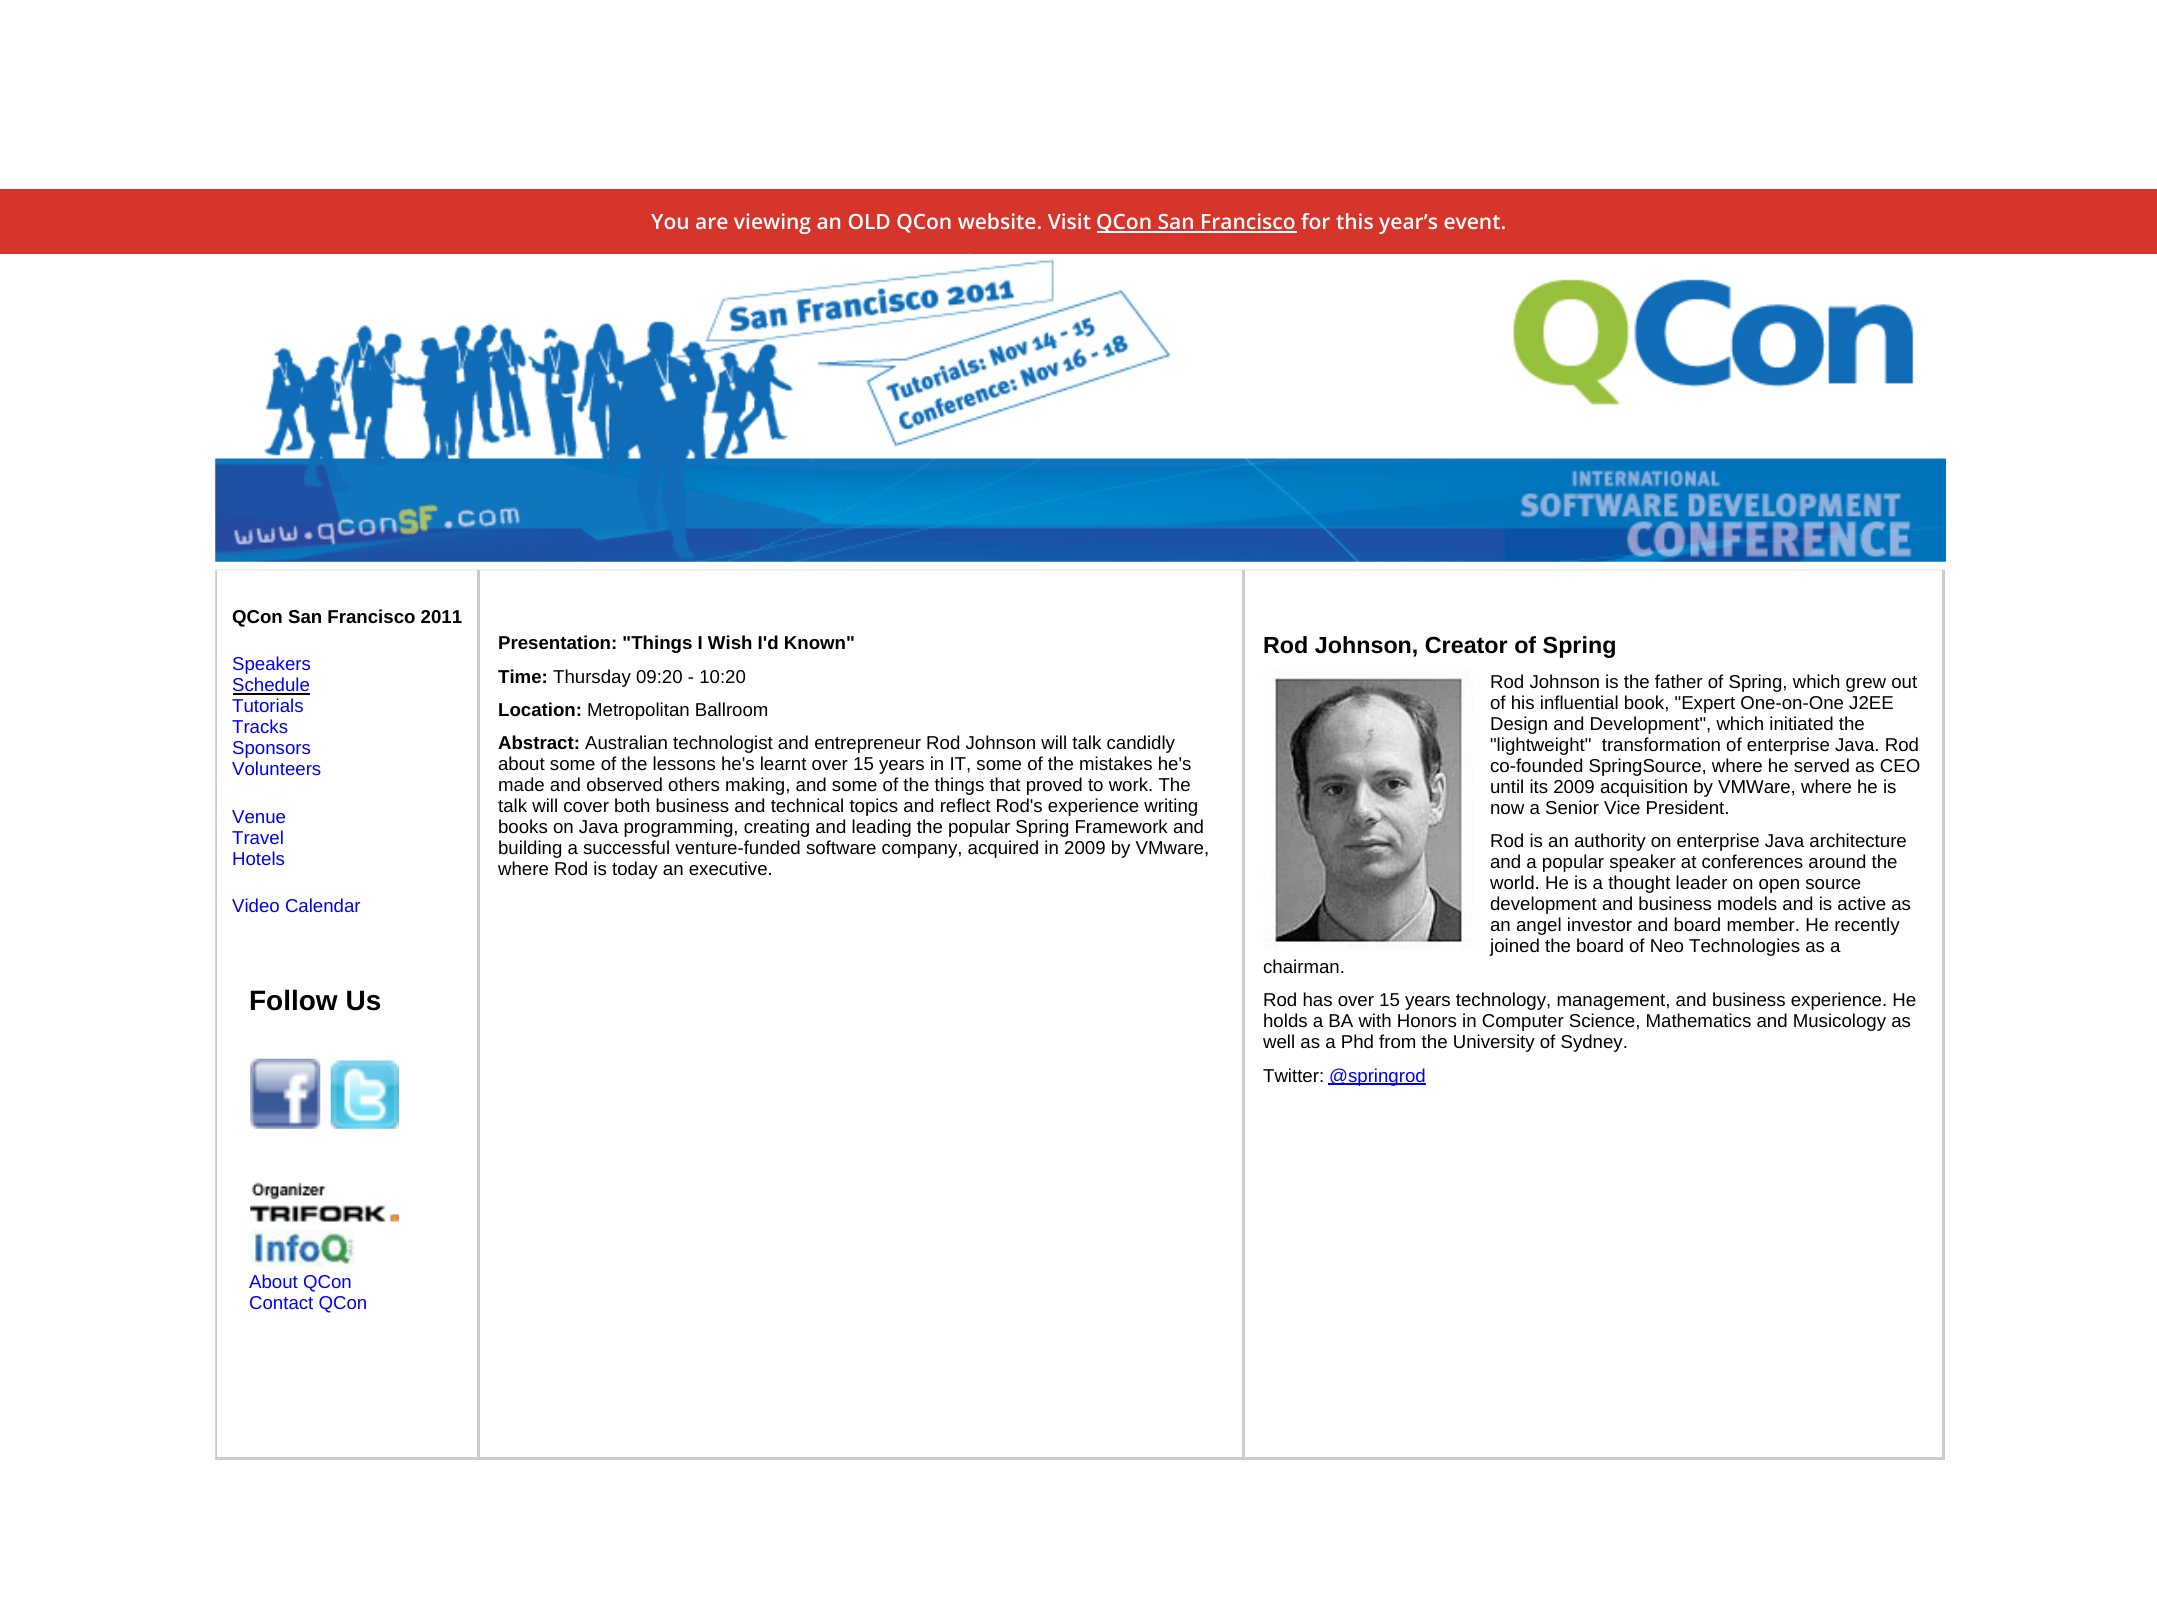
#include <cairo.h>
#include <math.h>
#include <stddef.h>


static void picture(cairo_t *cr, const char *path, double x, double y, double w, double h) {
    cairo_surface_t *image = cairo_image_surface_create_from_png(path);
    cairo_save(cr);
    cairo_set_source_surface(cr, image, x, y);
    cairo_rectangle(cr, x, y, w, h);
    cairo_fill(cr);
    cairo_restore(cr);
    cairo_surface_destroy(image);
}

int main(void) {
    cairo_surface_t *surface = cairo_image_surface_create(CAIRO_FORMAT_RGB24, 2157, 1609);
    cairo_t *cr = cairo_create(surface);
    cairo_font_options_t *options = cairo_font_options_create();
    cairo_font_options_set_hint_metrics(options, CAIRO_HINT_METRICS_OFF);
    cairo_font_options_set_hint_style(options, CAIRO_HINT_STYLE_NONE);
    cairo_set_font_options(cr, options);
    cairo_set_miter_limit(cr, 4);
    cairo_set_source_rgb(cr, 1, 1, 1);
    cairo_paint(cr);
    cairo_set_source_rgb(cr, 0.839, 0.208, 0.173);
    cairo_rectangle(cr, 0, 189, 2157, 65);
    cairo_fill(cr);
    cairo_select_font_face(cr, "Open Sans SemiBold", CAIRO_FONT_SLANT_NORMAL, CAIRO_FONT_WEIGHT_NORMAL);
    cairo_set_font_size(cr, 21);
    cairo_set_source_rgb(cr, 1, 1, 1);
    cairo_move_to(cr, 651, 229);
    cairo_show_text(cr, "You are viewing an OLD QCon website. Visit");
    cairo_rectangle(cr, 1097, 231, 200, 2);
    cairo_fill(cr);
    cairo_move_to(cr, 1096, 229);
    cairo_show_text(cr, "QCon San Francisco for this year’s event.");
    cairo_set_source_rgb(cr, 0.941, 0.941, 0.941);
    cairo_rectangle(cr, 215, 569, 1729, 2);
    cairo_fill(cr);
    picture(cr, "img1.png", 215, 253, 1731, 309);
    picture(cr, "img2.png", 215, 570, 2, 887);
    cairo_select_font_face(cr, "Liberation Sans", CAIRO_FONT_SLANT_NORMAL, CAIRO_FONT_WEIGHT_BOLD);
    cairo_set_font_size(cr, 18.65);
    cairo_set_source_rgb(cr, 0, 0, 0);
    cairo_move_to(cr, 232, 623);
    cairo_show_text(cr, "QCon San Francisco 2011");
    cairo_select_font_face(cr, "Liberation Sans", CAIRO_FONT_SLANT_NORMAL, CAIRO_FONT_WEIGHT_NORMAL);
    cairo_set_source_rgb(cr, 0, 0, 0.933);
    cairo_move_to(cr, 232, 670);
    cairo_show_text(cr, "Speakers");
    cairo_move_to(cr, 232, 691);
    cairo_show_text(cr, "Schedule");
    cairo_set_source_rgb(cr, 0, 0, 0);
    cairo_rectangle(cr, 233, 693, 77, 2);
    cairo_fill(cr);
    cairo_set_source_rgb(cr, 0, 0, 0.933);
    cairo_move_to(cr, 232, 712);
    cairo_show_text(cr, "Tutorials");
    cairo_move_to(cr, 232, 733);
    cairo_show_text(cr, "Tracks");
    cairo_move_to(cr, 232, 754);
    cairo_show_text(cr, "Sponsors");
    cairo_move_to(cr, 232, 775);
    cairo_show_text(cr, "Volunteers");
    cairo_move_to(cr, 232, 823);
    cairo_show_text(cr, "Venue");
    cairo_move_to(cr, 232, 844);
    cairo_show_text(cr, "Travel");
    cairo_move_to(cr, 232, 865);
    cairo_show_text(cr, "Hotels");
    cairo_move_to(cr, 232, 912);
    cairo_show_text(cr, "Video Calendar");
    cairo_select_font_face(cr, "Liberation Sans", CAIRO_FONT_SLANT_NORMAL, CAIRO_FONT_WEIGHT_BOLD);
    cairo_set_font_size(cr, 28);
    cairo_set_source_rgb(cr, 0, 0, 0);
    cairo_move_to(cr, 249, 1010);
    cairo_show_text(cr, "Follow Us");
    picture(cr, "img3.png", 250, 1058, 71, 71);
    picture(cr, "img4.png", 330, 1060, 69, 69);
    picture(cr, "img5.png", 250, 1182, 149, 40);
    picture(cr, "img6.png", 250, 1230, 105, 37);
    cairo_select_font_face(cr, "Liberation Sans", CAIRO_FONT_SLANT_NORMAL, CAIRO_FONT_WEIGHT_NORMAL);
    cairo_set_font_size(cr, 18.65);
    cairo_set_source_rgb(cr, 0, 0, 0.933);
    cairo_move_to(cr, 249, 1288);
    cairo_show_text(cr, "About QCon");
    cairo_move_to(cr, 249, 1309);
    cairo_show_text(cr, "Contact QCon");
    cairo_set_source_rgb(cr, 0.8, 0.8, 0.8);
    cairo_rectangle(cr, 477, 570, 3, 888);
    cairo_fill(cr);
    cairo_select_font_face(cr, "Liberation Sans", CAIRO_FONT_SLANT_NORMAL, CAIRO_FONT_WEIGHT_BOLD);
    cairo_set_source_rgb(cr, 0, 0, 0);
    cairo_move_to(cr, 498, 649);
    cairo_show_text(cr, "Presentation: \"Things I Wish I'd Known\"");
    cairo_move_to(cr, 498, 683);
    cairo_show_text(cr, "Time:");
    cairo_select_font_face(cr, "Liberation Sans", CAIRO_FONT_SLANT_NORMAL, CAIRO_FONT_WEIGHT_NORMAL);
    cairo_move_to(cr, 553, 683);
    cairo_show_text(cr, "Thursday 09:20 - 10:20");
    cairo_select_font_face(cr, "Liberation Sans", CAIRO_FONT_SLANT_NORMAL, CAIRO_FONT_WEIGHT_BOLD);
    cairo_move_to(cr, 498, 716);
    cairo_show_text(cr, "Location:");
    cairo_select_font_face(cr, "Liberation Sans", CAIRO_FONT_SLANT_NORMAL, CAIRO_FONT_WEIGHT_NORMAL);
    cairo_move_to(cr, 587, 716);
    cairo_show_text(cr, "Metropolitan Ballroom");
    cairo_select_font_face(cr, "Liberation Sans", CAIRO_FONT_SLANT_NORMAL, CAIRO_FONT_WEIGHT_BOLD);
    cairo_move_to(cr, 498, 749);
    cairo_show_text(cr, "Abstract:");
    cairo_select_font_face(cr, "Liberation Sans", CAIRO_FONT_SLANT_NORMAL, CAIRO_FONT_WEIGHT_NORMAL);
    cairo_move_to(cr, 585, 749);
    cairo_show_text(cr, "Australian technologist and entrepreneur Rod Johnson will talk candidly");
    cairo_move_to(cr, 498, 770);
    cairo_show_text(cr, "about some of the lessons he's learnt over 15 years in IT, some of the mistakes he's");
    cairo_move_to(cr, 498, 791);
    cairo_show_text(cr, "made and observed others making, and some of the things that proved to work. The");
    cairo_move_to(cr, 498, 812);
    cairo_show_text(cr, "talk will cover both business and technical topics and reflect Rod's experience writing");
    cairo_move_to(cr, 498, 833);
    cairo_show_text(cr, "books on Java programming, creating and leading the popular Spring Framework and");
    cairo_move_to(cr, 498, 854);
    cairo_show_text(cr, "building a successful venture-funded software company, acquired in 2009 by VMware,");
    cairo_move_to(cr, 498, 875);
    cairo_show_text(cr, "where Rod is today an executive.");
    cairo_set_source_rgb(cr, 0.8, 0.8, 0.8);
    cairo_rectangle(cr, 1242, 570, 3, 888);
    cairo_fill(cr);
    cairo_select_font_face(cr, "Liberation Sans", CAIRO_FONT_SLANT_NORMAL, CAIRO_FONT_WEIGHT_BOLD);
    cairo_set_font_size(cr, 23.3);
    cairo_set_source_rgb(cr, 0, 0, 0);
    cairo_move_to(cr, 1263, 653);
    cairo_show_text(cr, "Rod Johnson, Creator of Spring");
    picture(cr, "img7.png", 1263, 670, 211, 280);
    cairo_select_font_face(cr, "Liberation Sans", CAIRO_FONT_SLANT_NORMAL, CAIRO_FONT_WEIGHT_NORMAL);
    cairo_set_font_size(cr, 18.65);
    cairo_move_to(cr, 1490, 688);
    cairo_show_text(cr, "Rod Johnson is the father of Spring, which grew out");
    cairo_move_to(cr, 1490, 709);
    cairo_show_text(cr, "of his influential book, \"Expert One-on-One J2EE");
    cairo_move_to(cr, 1490, 730);
    cairo_show_text(cr, "Design and Development\", which initiated the");
    cairo_move_to(cr, 1490, 751);
    cairo_show_text(cr, "\"lightweight\"  transformation of enterprise Java. Rod");
    cairo_move_to(cr, 1490, 772);
    cairo_show_text(cr, "co-founded SpringSource, where he served as CEO");
    cairo_move_to(cr, 1490, 793);
    cairo_show_text(cr, "until its 2009 acquisition by VMWare, where he is");
    cairo_move_to(cr, 1490, 814);
    cairo_show_text(cr, "now a Senior Vice President.");
    cairo_move_to(cr, 1490, 847);
    cairo_show_text(cr, "Rod is an authority on enterprise Java architecture");
    cairo_move_to(cr, 1490, 868);
    cairo_show_text(cr, "and a popular speaker at conferences around the");
    cairo_move_to(cr, 1490, 889);
    cairo_show_text(cr, "world. He is a thought leader on open source");
    cairo_move_to(cr, 1490, 910);
    cairo_show_text(cr, "development and business models and is active as");
    cairo_move_to(cr, 1490, 931);
    cairo_show_text(cr, "an angel investor and board member. He recently");
    cairo_move_to(cr, 1490, 952);
    cairo_show_text(cr, "joined the board of Neo Technologies as a");
    cairo_move_to(cr, 1263, 973);
    cairo_show_text(cr, "chairman.");
    cairo_move_to(cr, 1263, 1006);
    cairo_show_text(cr, "Rod has over 15 years technology, management, and business experience. He");
    cairo_move_to(cr, 1263, 1027);
    cairo_show_text(cr, "holds a BA with Honors in Computer Science, Mathematics and Musicology as");
    cairo_move_to(cr, 1263, 1048);
    cairo_show_text(cr, "well as a Phd from the University of Sydney.");
    cairo_move_to(cr, 1263, 1082);
    cairo_show_text(cr, "Twitter:");
    cairo_set_source_rgb(cr, 0, 0, 0.933);
    cairo_rectangle(cr, 1328, 1083, 98, 2);
    cairo_fill(cr);
    cairo_move_to(cr, 1329, 1082);
    cairo_show_text(cr, "@springrod");
    cairo_set_source_rgb(cr, 0.8, 0.8, 0.8);
    cairo_rectangle(cr, 1942, 570, 3, 888);
    cairo_fill(cr);
    cairo_rectangle(cr, 215, 1457, 1730, 3);
    cairo_fill(cr);
    cairo_surface_write_to_png(surface, "page.png");
    cairo_font_options_destroy(options);
    cairo_destroy(cr);
    cairo_surface_destroy(surface);
    return 0;
}
